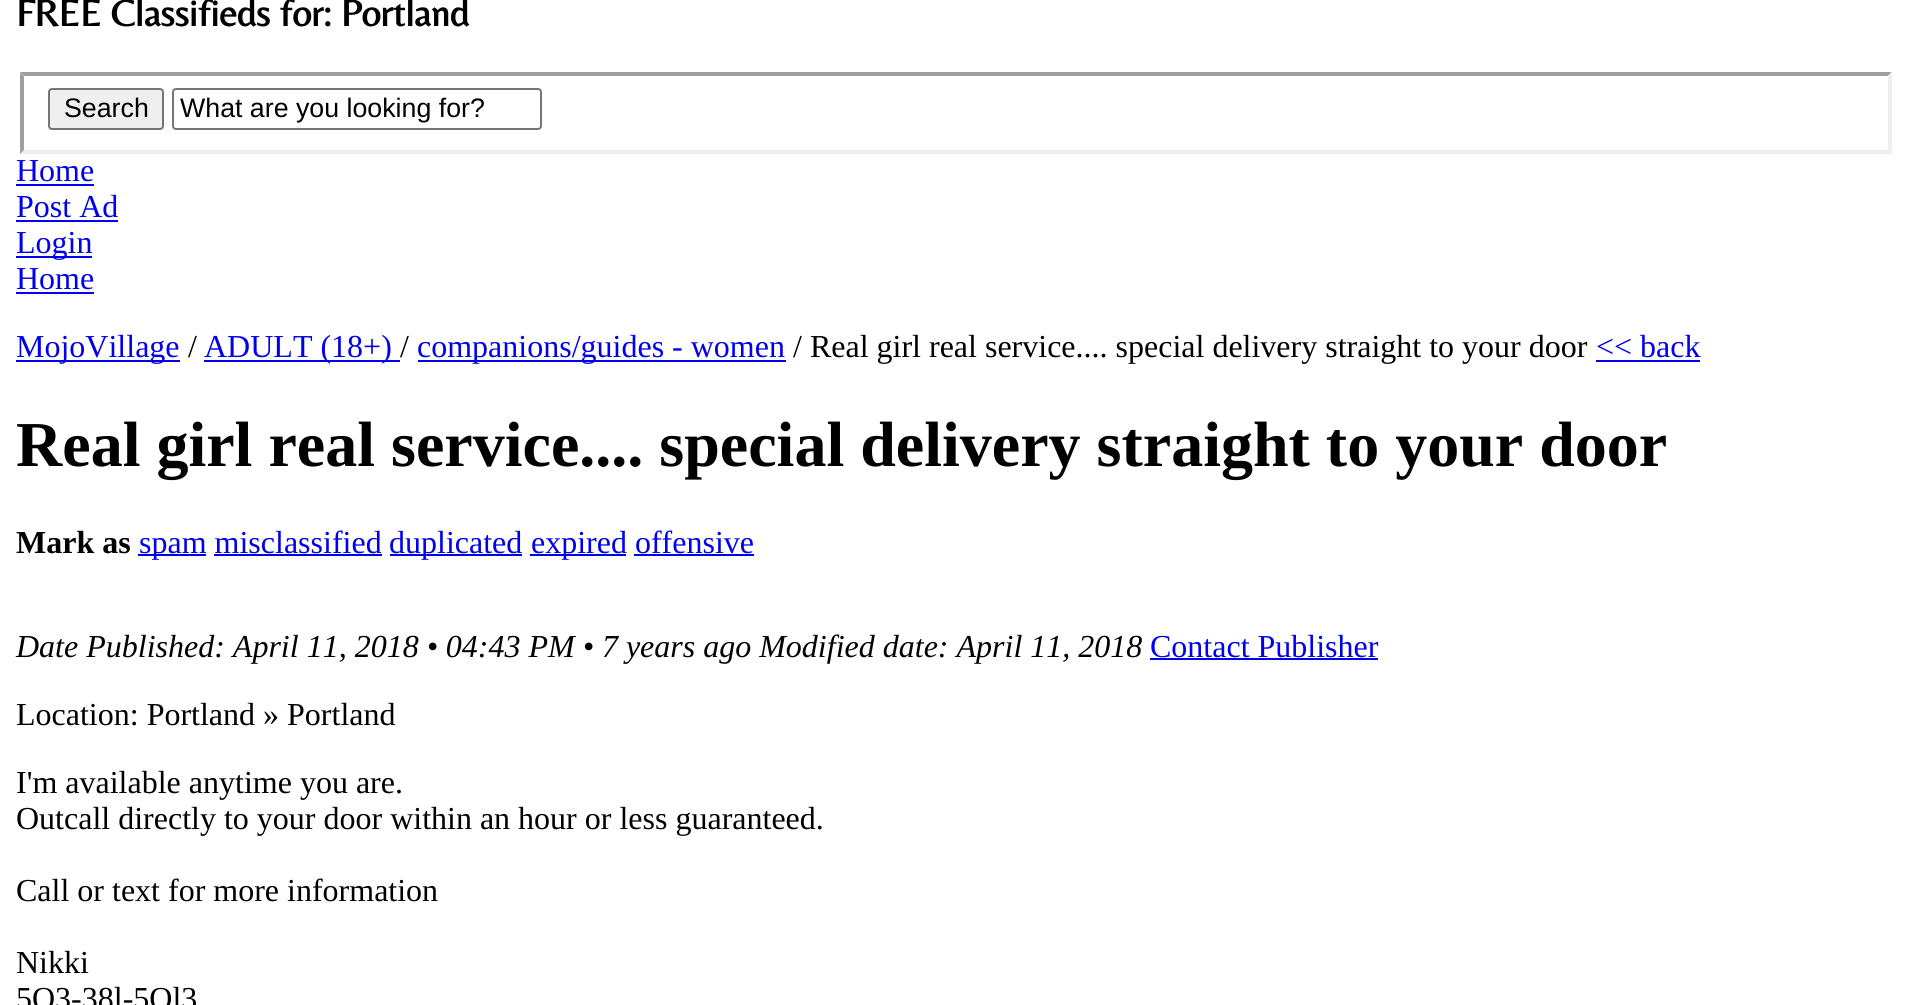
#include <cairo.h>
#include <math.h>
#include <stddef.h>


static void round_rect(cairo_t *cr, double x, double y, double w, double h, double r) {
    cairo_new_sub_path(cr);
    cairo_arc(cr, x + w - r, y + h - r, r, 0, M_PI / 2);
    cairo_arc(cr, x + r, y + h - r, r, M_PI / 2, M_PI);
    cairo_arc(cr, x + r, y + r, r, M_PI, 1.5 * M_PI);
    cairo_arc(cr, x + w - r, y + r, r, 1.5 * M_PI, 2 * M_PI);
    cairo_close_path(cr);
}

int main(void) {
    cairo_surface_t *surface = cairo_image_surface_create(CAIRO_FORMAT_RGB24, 1911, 1005);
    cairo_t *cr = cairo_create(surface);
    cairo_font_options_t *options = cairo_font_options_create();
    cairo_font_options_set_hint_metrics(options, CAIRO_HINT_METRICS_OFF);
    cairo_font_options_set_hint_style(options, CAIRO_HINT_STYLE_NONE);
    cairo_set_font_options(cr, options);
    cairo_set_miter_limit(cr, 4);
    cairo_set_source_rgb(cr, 1, 1, 1);
    cairo_paint(cr);
    cairo_select_font_face(cr, "Belleza", CAIRO_FONT_SLANT_NORMAL, CAIRO_FONT_WEIGHT_BOLD);
    cairo_set_font_size(cr, 38);
    cairo_set_source_rgb(cr, 0, 0, 0);
    cairo_move_to(cr, 16, 26);
    cairo_show_text(cr, "FREE Classifieds for: Portland");
    cairo_set_source_rgb(cr, 0.624, 0.624, 0.624);
    cairo_new_path(cr);
    cairo_move_to(cr, 20, 72);
    cairo_line_to(cr, 1892, 72);
    cairo_line_to(cr, 1888, 76);
    cairo_line_to(cr, 24, 76);
    cairo_close_path(cr);
    cairo_fill(cr);
    cairo_set_source_rgb(cr, 0.937, 0.937, 0.937);
    cairo_new_path(cr);
    cairo_move_to(cr, 1892, 72);
    cairo_line_to(cr, 1892, 154);
    cairo_line_to(cr, 1888, 150);
    cairo_line_to(cr, 1888, 76);
    cairo_close_path(cr);
    cairo_fill(cr);
    cairo_new_path(cr);
    cairo_move_to(cr, 1892, 154);
    cairo_line_to(cr, 20, 154);
    cairo_line_to(cr, 24, 150);
    cairo_line_to(cr, 1888, 150);
    cairo_close_path(cr);
    cairo_fill(cr);
    cairo_set_source_rgb(cr, 0.624, 0.624, 0.624);
    cairo_new_path(cr);
    cairo_move_to(cr, 20, 154);
    cairo_line_to(cr, 20, 72);
    cairo_line_to(cr, 24, 76);
    cairo_line_to(cr, 24, 150);
    cairo_close_path(cr);
    cairo_fill(cr);
    cairo_set_source_rgb(cr, 0.937, 0.937, 0.937);
    round_rect(cr, 49, 89, 114, 40, 3);
    cairo_fill_preserve(cr);
    cairo_set_source_rgb(cr, 0.463, 0.463, 0.463);
    cairo_stroke(cr);
    cairo_select_font_face(cr, "Liberation Sans", CAIRO_FONT_SLANT_NORMAL, CAIRO_FONT_WEIGHT_NORMAL);
    cairo_set_font_size(cr, 26.75);
    cairo_set_source_rgb(cr, 0, 0, 0);
    cairo_move_to(cr, 64, 117);
    cairo_show_text(cr, "Search");
    round_rect(cr, 173, 89, 368, 40, 3);
    cairo_set_source_rgb(cr, 0.463, 0.463, 0.463);
    cairo_stroke(cr);
    cairo_set_source_rgb(cr, 0, 0, 0);
    cairo_move_to(cr, 180, 117);
    cairo_show_text(cr, "What are you looking for?");
    cairo_select_font_face(cr, "Liberation Serif", CAIRO_FONT_SLANT_NORMAL, CAIRO_FONT_WEIGHT_NORMAL);
    cairo_set_font_size(cr, 32);
    cairo_set_source_rgb(cr, 0, 0, 0.933);
    cairo_move_to(cr, 16, 181);
    cairo_show_text(cr, "Home");
    cairo_rectangle(cr, 16, 184, 78, 2);
    cairo_fill(cr);
    cairo_move_to(cr, 16, 217);
    cairo_show_text(cr, "Post Ad");
    cairo_rectangle(cr, 16, 220, 102, 2);
    cairo_fill(cr);
    cairo_rectangle(cr, 16, 256, 76, 2);
    cairo_fill(cr);
    cairo_move_to(cr, 16, 253);
    cairo_show_text(cr, "Login");
    cairo_move_to(cr, 16, 289);
    cairo_show_text(cr, "Home");
    cairo_rectangle(cr, 16, 292, 78, 2);
    cairo_fill(cr);
    cairo_rectangle(cr, 16, 360, 164, 2);
    cairo_fill(cr);
    cairo_move_to(cr, 16, 357);
    cairo_show_text(cr, "MojoVillage");
    cairo_set_source_rgb(cr, 0, 0, 0);
    cairo_move_to(cr, 188, 357);
    cairo_show_text(cr, "/");
    cairo_set_source_rgb(cr, 0, 0, 0.933);
    cairo_rectangle(cr, 204, 360, 196, 2);
    cairo_fill(cr);
    cairo_move_to(cr, 204, 357);
    cairo_show_text(cr, "ADULT (18+)");
    cairo_set_source_rgb(cr, 0, 0, 0);
    cairo_move_to(cr, 400, 357);
    cairo_show_text(cr, "/");
    cairo_set_source_rgb(cr, 0, 0, 0.933);
    cairo_rectangle(cr, 418, 360, 368, 2);
    cairo_fill(cr);
    cairo_move_to(cr, 417, 357);
    cairo_show_text(cr, "companions/guides - women");
    cairo_set_source_rgb(cr, 0, 0, 0);
    cairo_move_to(cr, 793, 357);
    cairo_show_text(cr, "/ Real girl real service.... special delivery straight to your door");
    cairo_set_source_rgb(cr, 0, 0, 0.933);
    cairo_move_to(cr, 1596, 357);
    cairo_show_text(cr, "<< back");
    cairo_rectangle(cr, 1596, 360, 104, 2);
    cairo_fill(cr);
    cairo_select_font_face(cr, "Liberation Serif", CAIRO_FONT_SLANT_NORMAL, CAIRO_FONT_WEIGHT_BOLD);
    cairo_set_font_size(cr, 64);
    cairo_set_source_rgb(cr, 0, 0, 0);
    cairo_move_to(cr, 16, 466);
    cairo_show_text(cr, "Real girl real service.... special delivery straight to your door");
    cairo_set_font_size(cr, 32);
    cairo_move_to(cr, 16, 553);
    cairo_show_text(cr, "Mark as");
    cairo_set_source_rgb(cr, 0, 0, 0.933);
    cairo_rectangle(cr, 138, 554, 68, 2);
    cairo_fill(cr);
    cairo_select_font_face(cr, "Liberation Serif", CAIRO_FONT_SLANT_NORMAL, CAIRO_FONT_WEIGHT_NORMAL);
    cairo_move_to(cr, 139, 553);
    cairo_show_text(cr, "spam misclassified");
    cairo_rectangle(cr, 214, 554, 168, 2);
    cairo_fill(cr);
    cairo_rectangle(cr, 390, 554, 132, 2);
    cairo_fill(cr);
    cairo_move_to(cr, 389, 553);
    cairo_show_text(cr, "duplicated");
    cairo_rectangle(cr, 530, 554, 96, 2);
    cairo_fill(cr);
    cairo_move_to(cr, 531, 553);
    cairo_show_text(cr, "expired offensive");
    cairo_rectangle(cr, 634, 554, 120, 2);
    cairo_fill(cr);
    cairo_select_font_face(cr, "Liberation Serif", CAIRO_FONT_SLANT_ITALIC, CAIRO_FONT_WEIGHT_NORMAL);
    cairo_set_source_rgb(cr, 0, 0, 0);
    cairo_move_to(cr, 16, 657);
    cairo_show_text(cr, "Date Published: April 11, 2018 • 04:43 PM • 7 years ago Modified date: April 11, 2018");
    cairo_select_font_face(cr, "Liberation Serif", CAIRO_FONT_SLANT_NORMAL, CAIRO_FONT_WEIGHT_NORMAL);
    cairo_set_source_rgb(cr, 0, 0, 0.933);
    cairo_move_to(cr, 1150, 657);
    cairo_show_text(cr, "Contact Publisher");
    cairo_rectangle(cr, 1150, 658, 228, 2);
    cairo_fill(cr);
    cairo_set_source_rgb(cr, 0, 0, 0);
    cairo_move_to(cr, 16, 725);
    cairo_show_text(cr, "Location: Portland » Portland");
    cairo_move_to(cr, 16, 793);
    cairo_show_text(cr, "I'm available anytime you are.");
    cairo_move_to(cr, 16, 829);
    cairo_show_text(cr, "Outcall directly to your door within an hour or less guaranteed.");
    cairo_move_to(cr, 16, 901);
    cairo_show_text(cr, "Call or text for more information");
    cairo_move_to(cr, 16, 973);
    cairo_show_text(cr, "Nikki");
    cairo_move_to(cr, 16, 1009);
    cairo_show_text(cr, "5O3-38l-5Ol3");
    cairo_surface_write_to_png(surface, "page.png");
    cairo_font_options_destroy(options);
    cairo_destroy(cr);
    cairo_surface_destroy(surface);
    return 0;
}
